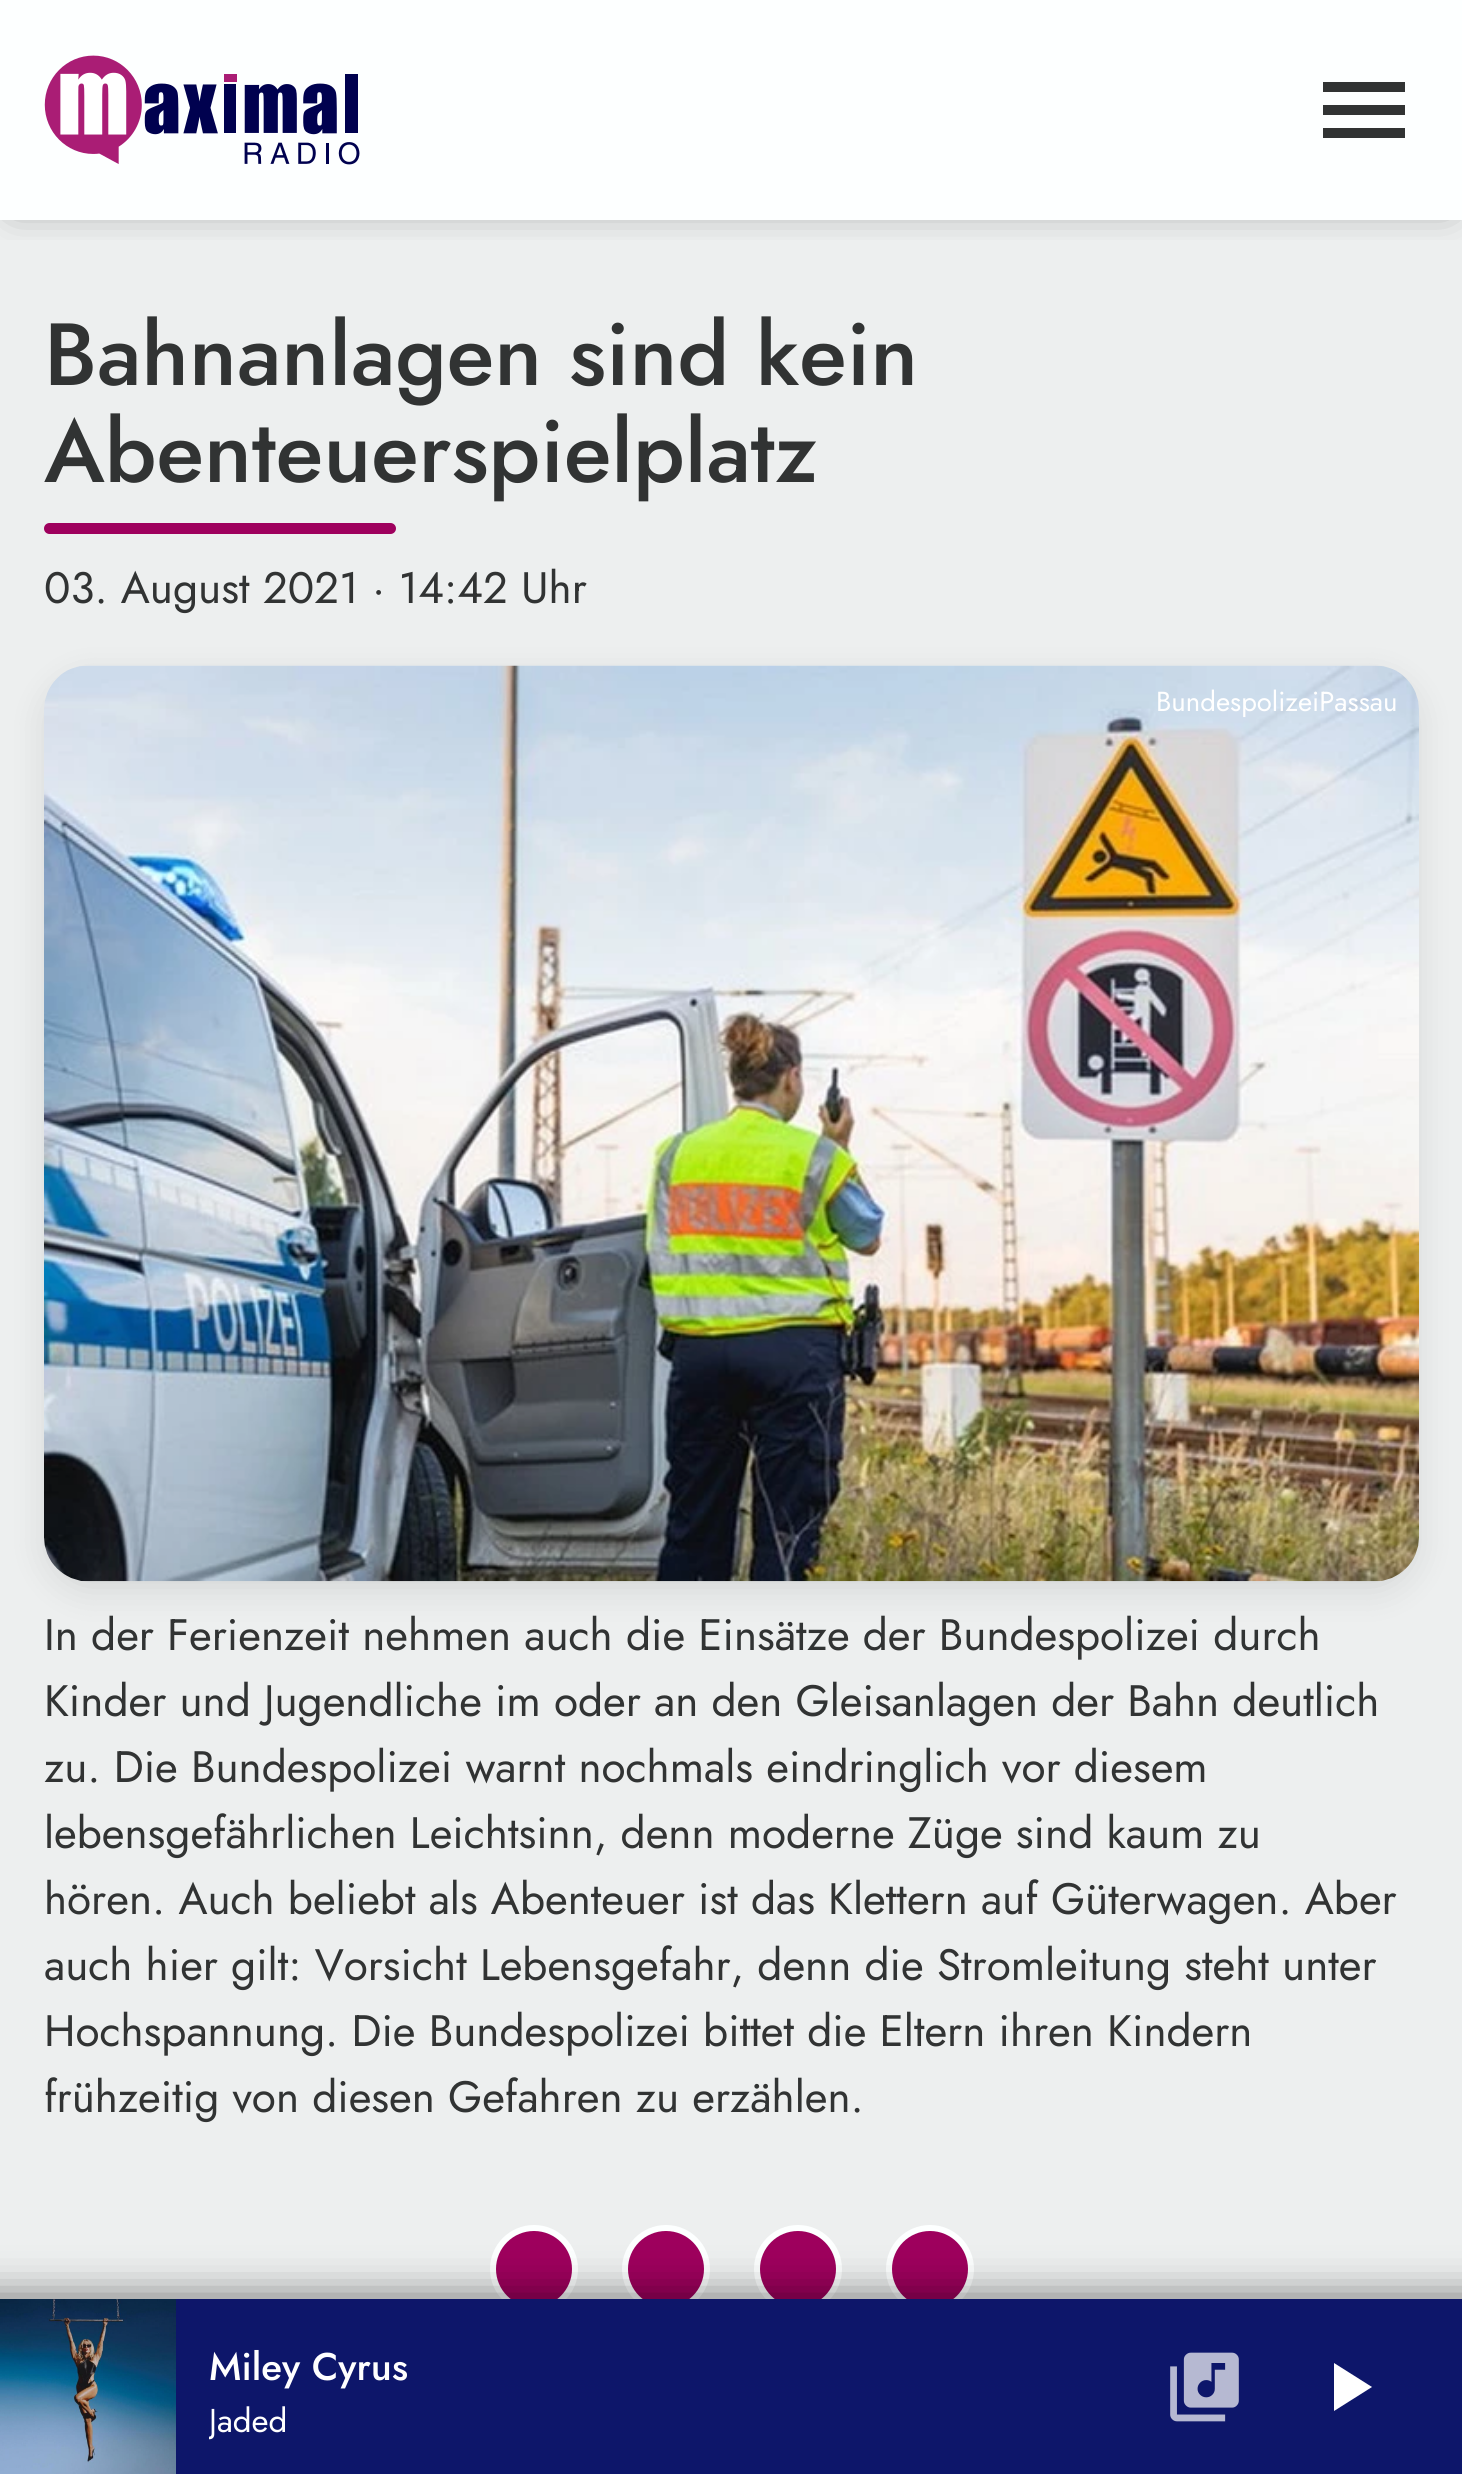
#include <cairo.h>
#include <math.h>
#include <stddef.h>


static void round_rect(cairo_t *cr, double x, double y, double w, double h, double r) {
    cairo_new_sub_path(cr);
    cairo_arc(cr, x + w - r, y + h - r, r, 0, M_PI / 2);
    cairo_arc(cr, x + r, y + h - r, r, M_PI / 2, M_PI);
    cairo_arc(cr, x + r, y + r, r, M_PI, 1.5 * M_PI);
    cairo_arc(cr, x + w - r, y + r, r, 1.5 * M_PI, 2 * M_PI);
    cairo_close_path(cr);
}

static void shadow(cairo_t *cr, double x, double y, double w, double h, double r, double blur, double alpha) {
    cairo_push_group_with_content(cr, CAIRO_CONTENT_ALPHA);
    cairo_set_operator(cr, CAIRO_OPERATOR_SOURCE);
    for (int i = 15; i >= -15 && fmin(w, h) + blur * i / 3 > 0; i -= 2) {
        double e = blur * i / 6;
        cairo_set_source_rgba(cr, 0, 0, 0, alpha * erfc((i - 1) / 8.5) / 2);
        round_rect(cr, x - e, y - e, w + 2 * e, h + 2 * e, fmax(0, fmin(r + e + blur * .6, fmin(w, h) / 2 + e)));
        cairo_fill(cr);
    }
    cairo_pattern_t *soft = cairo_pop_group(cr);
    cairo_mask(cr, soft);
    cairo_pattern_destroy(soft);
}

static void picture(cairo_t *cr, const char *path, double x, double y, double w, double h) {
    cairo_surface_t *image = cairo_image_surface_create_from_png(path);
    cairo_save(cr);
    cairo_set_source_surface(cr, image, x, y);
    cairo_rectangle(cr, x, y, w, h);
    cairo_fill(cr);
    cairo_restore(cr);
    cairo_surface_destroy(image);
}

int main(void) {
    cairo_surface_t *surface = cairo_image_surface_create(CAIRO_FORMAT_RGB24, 1462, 2474);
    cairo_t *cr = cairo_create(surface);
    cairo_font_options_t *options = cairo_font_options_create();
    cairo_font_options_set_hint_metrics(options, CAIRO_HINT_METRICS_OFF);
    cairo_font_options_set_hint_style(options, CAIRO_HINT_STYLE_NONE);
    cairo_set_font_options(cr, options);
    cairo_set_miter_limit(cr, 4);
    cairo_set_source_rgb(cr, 0.992, 1, 1);
    cairo_paint(cr);
    cairo_set_source_rgb(cr, 0.929, 0.937, 0.937);
    cairo_rectangle(cr, 0, 220, 1462, 2079);
    cairo_fill(cr);
    cairo_save(cr);
    cairo_rectangle(cr, 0, 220, 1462, 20);
    cairo_clip(cr);
    cairo_set_source_rgb(cr, 0, 0, 0);
    shadow(cr, 14, 14, 1435, 192, 0, 20.5, 0.4);
    cairo_restore(cr);
    picture(cr, "img1.png", 44, 55, 316, 110);
    cairo_set_source_rgb(cr, 0.192, 0.2, 0.2);
    cairo_new_path(cr);
    cairo_move_to(cr, 1323, 82);
    cairo_line_to(cr, 1405, 82);
    cairo_line_to(cr, 1405, 92);
    cairo_line_to(cr, 1323, 92);
    cairo_close_path(cr);
    cairo_move_to(cr, 1323, 115);
    cairo_line_to(cr, 1323, 105);
    cairo_line_to(cr, 1405, 105);
    cairo_line_to(cr, 1405, 115);
    cairo_close_path(cr);
    cairo_move_to(cr, 1323, 138);
    cairo_line_to(cr, 1323, 128);
    cairo_line_to(cr, 1405, 128);
    cairo_line_to(cr, 1405, 138);
    cairo_close_path(cr);
    cairo_fill(cr);
    cairo_select_font_face(cr, "Jost Medium", CAIRO_FONT_SLANT_NORMAL, CAIRO_FONT_WEIGHT_NORMAL);
    cairo_set_font_size(cr, 88);
    cairo_move_to(cr, 44, 385);
    cairo_show_text(cr, "Bahnanlagen sind kein");
    cairo_move_to(cr, 44, 482);
    cairo_show_text(cr, "Abenteuerspielplatz");
    cairo_set_source_rgb(cr, 0.62, 0, 0.365);
    round_rect(cr, 44, 523, 352, 11, 5.5);
    cairo_fill(cr);
    cairo_select_font_face(cr, "Jost", CAIRO_FONT_SLANT_NORMAL, CAIRO_FONT_WEIGHT_NORMAL);
    cairo_set_font_size(cr, 44);
    cairo_set_source_rgb(cr, 0.192, 0.2, 0.2);
    cairo_move_to(cr, 44, 603);
    cairo_show_text(cr, "03. August 2021 · 14:42 Uhr");
    cairo_set_source_rgb(cr, 0, 0, 0);
    shadow(cr, 44, 677, 1375, 915, 44, 16.5, 0.1);
    picture(cr, "img2.png", 44, 665, 1375, 917);
    cairo_set_font_size(cr, 27.5);
    cairo_set_source_rgb(cr, 1, 1, 1);
    cairo_move_to(cr, 1156, 711);
    cairo_show_text(cr, "BundespolizeiPassau");
    cairo_set_font_size(cr, 44);
    cairo_set_source_rgb(cr, 0.192, 0.2, 0.2);
    cairo_move_to(cr, 44, 1650);
    cairo_show_text(cr, "In der Ferienzeit nehmen auch die Einsätze der Bundespolizei durch");
    cairo_move_to(cr, 44, 1716);
    cairo_show_text(cr, "Kinder und Jugendliche im oder an den Gleisanlagen der Bahn deutlich");
    cairo_move_to(cr, 44, 1782);
    cairo_show_text(cr, "zu. Die Bundespolizei warnt nochmals eindringlich vor diesem");
    cairo_move_to(cr, 44, 1848);
    cairo_show_text(cr, "lebensgefährlichen Leichtsinn, denn moderne Züge sind kaum zu");
    cairo_move_to(cr, 44, 1914);
    cairo_show_text(cr, "hören. Auch beliebt als Abenteuer ist das Klettern auf Güterwagen. Aber");
    cairo_move_to(cr, 44, 1980);
    cairo_show_text(cr, "auch hier gilt: Vorsicht Lebensgefahr, denn die Stromleitung steht unter");
    cairo_move_to(cr, 44, 2046);
    cairo_show_text(cr, "Hochspannung. Die Bundespolizei bittet die Eltern ihren Kindern");
    cairo_move_to(cr, 44, 2112);
    cairo_show_text(cr, "frühzeitig von diesen Gefahren zu erzählen.");
    cairo_set_source_rgb(cr, 0.62, 0, 0.365);
    cairo_new_path(cr);
    cairo_arc(cr, 534, 2269, 41, 0, 2 * M_PI);
    cairo_fill_preserve(cr);
    cairo_set_source_rgb(cr, 0.992, 1, 1);
    cairo_set_line_width(cr, 6);
    cairo_stroke(cr);
    cairo_set_source_rgb(cr, 0.62, 0, 0.365);
    cairo_arc(cr, 666, 2269, 41, 0, 2 * M_PI);
    cairo_fill_preserve(cr);
    cairo_set_source_rgb(cr, 0.992, 1, 1);
    cairo_stroke(cr);
    cairo_set_source_rgb(cr, 0.62, 0, 0.365);
    cairo_arc(cr, 798, 2269, 41, 0, 2 * M_PI);
    cairo_fill_preserve(cr);
    cairo_set_source_rgb(cr, 0.992, 1, 1);
    cairo_stroke(cr);
    cairo_set_source_rgb(cr, 0.62, 0, 0.365);
    cairo_arc(cr, 930, 2269, 41, 0, 2 * M_PI);
    cairo_fill_preserve(cr);
    cairo_set_source_rgb(cr, 0.992, 1, 1);
    cairo_stroke(cr);
    cairo_set_source_rgb(cr, 0, 0, 0);
    shadow(cr, -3, 2296, 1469, 6, 0, 20.5, 0.5);
    cairo_set_source_rgb(cr, 0.051, 0.086, 0.416);
    cairo_rectangle(cr, 176, 2299, 1286, 175);
    cairo_fill(cr);
    picture(cr, "img3.png", 0, 2299, 176, 175);
    cairo_select_font_face(cr, "Jost Medium", CAIRO_FONT_SLANT_NORMAL, CAIRO_FONT_WEIGHT_NORMAL);
    cairo_set_font_size(cr, 38.5);
    cairo_set_source_rgb(cr, 1, 1, 1);
    cairo_move_to(cr, 209, 2380);
    cairo_show_text(cr, "Miley Cyrus");
    cairo_save(cr);
    cairo_rectangle(cr, 209, 2398, 924, 50);
    cairo_clip(cr);
    cairo_select_font_face(cr, "Jost", CAIRO_FONT_SLANT_NORMAL, CAIRO_FONT_WEIGHT_NORMAL);
    cairo_set_font_size(cr, 33);
    cairo_move_to(cr, 209, 2432);
    cairo_show_text(cr, "Jaded");
    cairo_restore(cr);
    picture(cr, "img4.png", 1170, 2352, 69, 70);
    cairo_new_path(cr);
    cairo_move_to(cr, 1334, 2363);
    cairo_line_to(cr, 1372, 2387);
    cairo_line_to(cr, 1334, 2411);
    cairo_close_path(cr);
    cairo_fill(cr);
    cairo_surface_write_to_png(surface, "page.png");
    cairo_font_options_destroy(options);
    cairo_destroy(cr);
    cairo_surface_destroy(surface);
    return 0;
}
